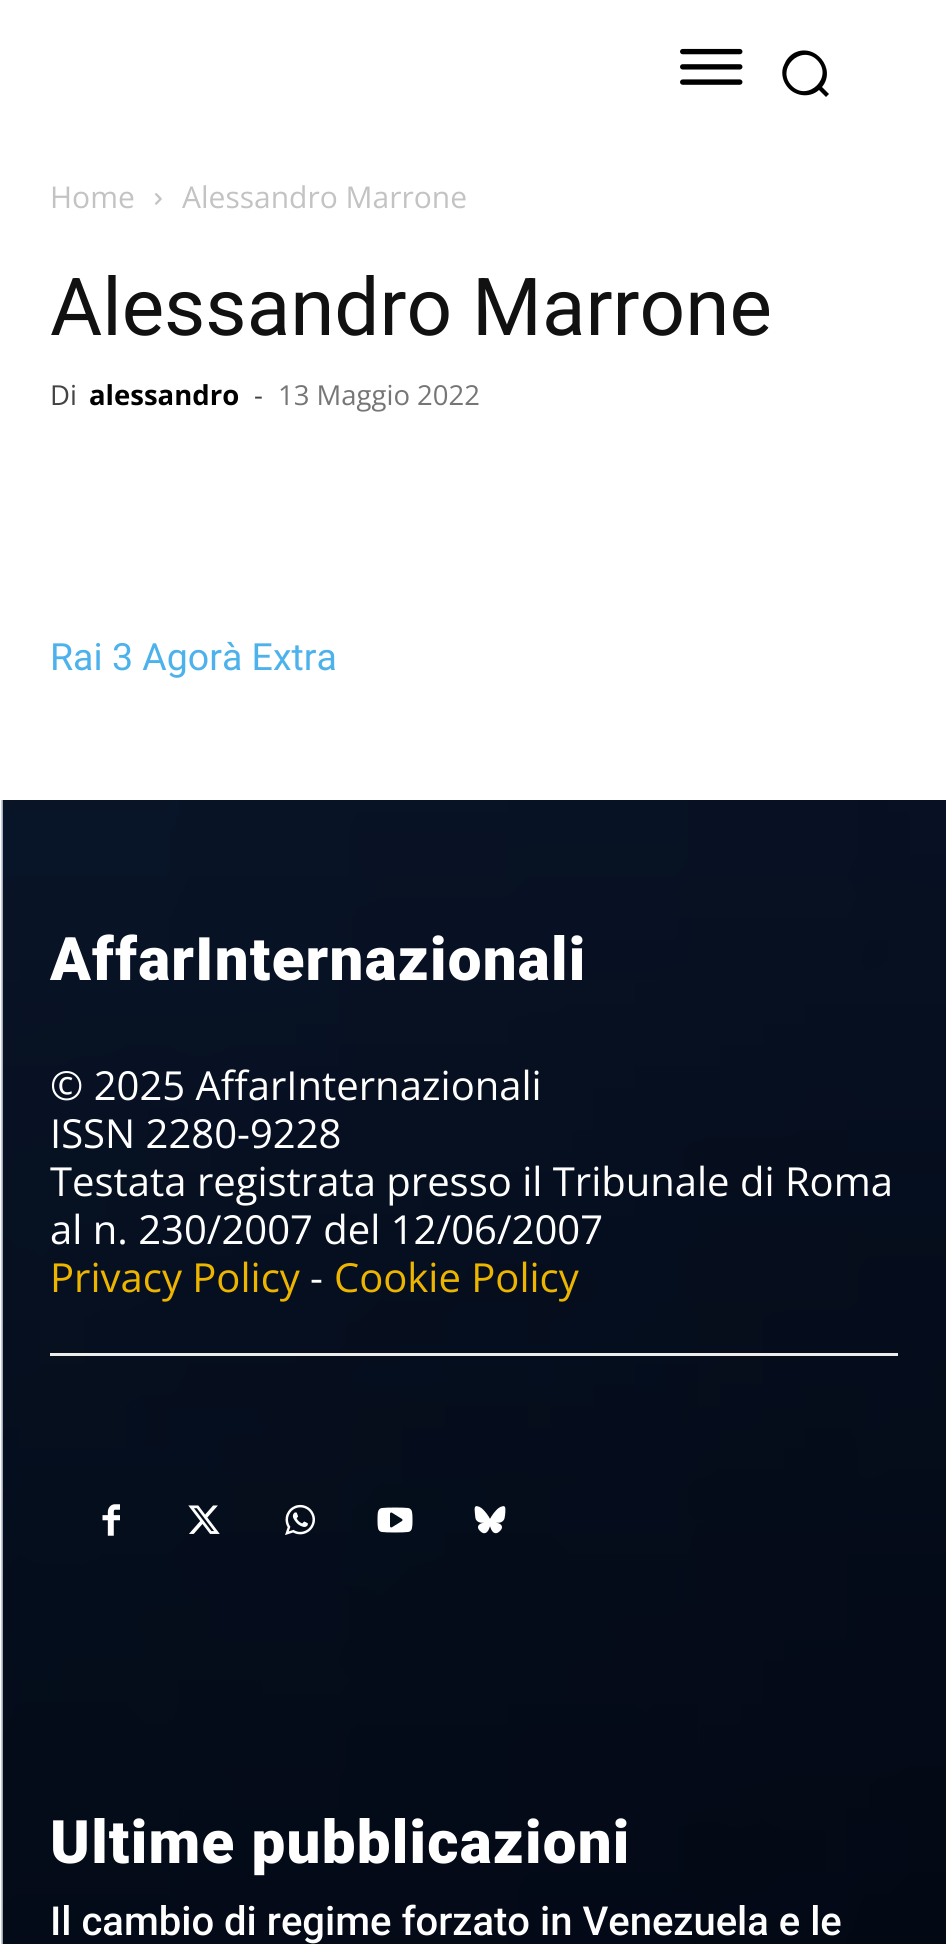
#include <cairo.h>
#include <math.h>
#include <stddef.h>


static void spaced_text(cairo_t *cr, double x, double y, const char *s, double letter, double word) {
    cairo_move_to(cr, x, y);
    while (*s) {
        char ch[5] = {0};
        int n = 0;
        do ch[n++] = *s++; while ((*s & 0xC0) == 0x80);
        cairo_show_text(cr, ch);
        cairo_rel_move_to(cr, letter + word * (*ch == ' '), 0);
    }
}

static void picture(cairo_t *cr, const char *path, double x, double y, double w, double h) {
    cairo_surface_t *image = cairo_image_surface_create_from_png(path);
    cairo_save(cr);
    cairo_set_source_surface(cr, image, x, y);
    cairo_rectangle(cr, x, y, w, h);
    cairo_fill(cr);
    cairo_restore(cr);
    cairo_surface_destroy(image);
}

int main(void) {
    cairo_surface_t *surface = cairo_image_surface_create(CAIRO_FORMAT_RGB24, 946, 1944);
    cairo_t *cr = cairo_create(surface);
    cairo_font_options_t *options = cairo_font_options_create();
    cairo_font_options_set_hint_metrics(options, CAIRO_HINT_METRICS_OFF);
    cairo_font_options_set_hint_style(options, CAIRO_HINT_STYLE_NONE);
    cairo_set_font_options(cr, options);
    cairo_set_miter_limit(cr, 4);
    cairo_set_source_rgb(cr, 1, 1, 1);
    cairo_paint(cr);
    picture(cr, "img1.png", 680, 48, 63, 37);
    cairo_set_source_rgb(cr, 0, 0, 0);
    cairo_new_path(cr);
    cairo_move_to(cr, 829, 94);
    cairo_line_to(cr, 822, 87);
    cairo_curve_to(cr, 837, 69, 815, 42, 794, 53);
    cairo_curve_to(cr, 789, 56, 786, 60, 784, 65);
    cairo_curve_to(cr, 781, 71, 782, 79, 786, 85);
    cairo_curve_to(cr, 793, 96, 809, 99, 819, 90);
    cairo_line_to(cr, 826, 97);
    cairo_close_path(cr);
    cairo_move_to(cr, 792, 86);
    cairo_curve_to(cr, 775, 69, 801, 44, 817, 60);
    cairo_curve_to(cr, 834, 77, 808, 102, 792, 86);
    cairo_close_path(cr);
    cairo_fill(cr);
    cairo_select_font_face(cr, "Open Sans", CAIRO_FONT_SLANT_NORMAL, CAIRO_FONT_WEIGHT_NORMAL);
    cairo_set_font_size(cr, 30);
    cairo_set_source_rgb(cr, 0.765, 0.765, 0.765);
    cairo_move_to(cr, 50, 208);
    cairo_show_text(cr, "Home");
    picture(cr, "img2.png", 155, 193, 7, 12);
    cairo_move_to(cr, 182, 208);
    cairo_show_text(cr, "Alessandro Marrone");
    cairo_select_font_face(cr, "Roboto", CAIRO_FONT_SLANT_NORMAL, CAIRO_FONT_WEIGHT_NORMAL);
    cairo_set_font_size(cr, 80);
    cairo_set_source_rgb(cr, 0.067, 0.067, 0.067);
    cairo_move_to(cr, 50, 335);
    cairo_show_text(cr, "Alessandro Marrone");
    cairo_select_font_face(cr, "Open Sans", CAIRO_FONT_SLANT_NORMAL, CAIRO_FONT_WEIGHT_NORMAL);
    cairo_set_font_size(cr, 27.5);
    cairo_set_source_rgb(cr, 0.267, 0.267, 0.267);
    cairo_move_to(cr, 50, 405);
    cairo_show_text(cr, "Di");
    cairo_select_font_face(cr, "Open Sans", CAIRO_FONT_SLANT_NORMAL, CAIRO_FONT_WEIGHT_BOLD);
    cairo_set_source_rgb(cr, 0, 0, 0);
    cairo_move_to(cr, 89, 405);
    cairo_show_text(cr, "alessandro");
    cairo_select_font_face(cr, "Open Sans", CAIRO_FONT_SLANT_NORMAL, CAIRO_FONT_WEIGHT_NORMAL);
    cairo_set_source_rgb(cr, 0.267, 0.267, 0.267);
    cairo_move_to(cr, 254, 405);
    cairo_show_text(cr, "-");
    cairo_set_source_rgb(cr, 0.463, 0.463, 0.463);
    cairo_move_to(cr, 278, 405);
    cairo_show_text(cr, "13 Maggio 2022");
    cairo_select_font_face(cr, "Roboto", CAIRO_FONT_SLANT_NORMAL, CAIRO_FONT_WEIGHT_NORMAL);
    cairo_set_font_size(cr, 37.5);
    cairo_set_source_rgb(cr, 0.302, 0.698, 0.925);
    cairo_move_to(cr, 50, 670);
    cairo_show_text(cr, "Rai 3 Agorà Extra");
    cairo_set_source_rgb(cr, 0, 0, 0);
    cairo_rectangle(cr, 3, 800, 943, 1144);
    cairo_fill(cr);
    picture(cr, "img3.png", 1, 800, 945, 1144);
    cairo_select_font_face(cr, "Roboto Black", CAIRO_FONT_SLANT_NORMAL, CAIRO_FONT_WEIGHT_NORMAL);
    cairo_set_font_size(cr, 60);
    cairo_set_source_rgb(cr, 1, 1, 1);
    spaced_text(cr, 50, 980, "AffarInternazionali", 1.25, 0);
    cairo_select_font_face(cr, "Open Sans", CAIRO_FONT_SLANT_NORMAL, CAIRO_FONT_WEIGHT_NORMAL);
    cairo_set_font_size(cr, 40);
    cairo_move_to(cr, 50, 1100);
    cairo_show_text(cr, "© 2025 AffarInternazionali");
    cairo_move_to(cr, 50, 1148);
    cairo_show_text(cr, "ISSN 2280-9228");
    cairo_move_to(cr, 50, 1196);
    cairo_show_text(cr, "Testata registrata presso il Tribunale di Roma");
    cairo_move_to(cr, 50, 1244);
    cairo_show_text(cr, "al n. 230/2007 del 12/06/2007");
    cairo_set_source_rgb(cr, 0.929, 0.71, 0);
    cairo_move_to(cr, 50, 1292);
    cairo_show_text(cr, "Privacy Policy");
    cairo_set_source_rgb(cr, 1, 1, 1);
    cairo_move_to(cr, 310, 1292);
    cairo_show_text(cr, "-");
    cairo_set_source_rgb(cr, 0.929, 0.71, 0);
    cairo_move_to(cr, 334, 1292);
    cairo_show_text(cr, "Cookie Policy");
    cairo_set_source_rgb(cr, 0.922, 0.922, 0.922);
    cairo_rectangle(cr, 50, 1353, 848, 3);
    cairo_fill(cr);
    picture(cr, "img4.png", 102, 1504, 18, 32);
    picture(cr, "img5.png", 188, 1505, 32, 29);
    picture(cr, "img6.png", 285, 1504, 30, 31);
    picture(cr, "img7.png", 377, 1507, 36, 26);
    picture(cr, "img8.png", 474, 1506, 32, 28);
    cairo_select_font_face(cr, "Roboto Black", CAIRO_FONT_SLANT_NORMAL, CAIRO_FONT_WEIGHT_NORMAL);
    cairo_set_font_size(cr, 60);
    cairo_set_source_rgb(cr, 1, 1, 1);
    spaced_text(cr, 50, 1863, "Ultime pubblicazioni", 1.25, 0);
    cairo_select_font_face(cr, "Roboto Medium", CAIRO_FONT_SLANT_NORMAL, CAIRO_FONT_WEIGHT_NORMAL);
    cairo_set_font_size(cr, 40);
    cairo_move_to(cr, 50, 1935);
    cairo_show_text(cr, "Il cambio di regime forzato in Venezuela e le");
    cairo_surface_write_to_png(surface, "page.png");
    cairo_font_options_destroy(options);
    cairo_destroy(cr);
    cairo_surface_destroy(surface);
    return 0;
}
